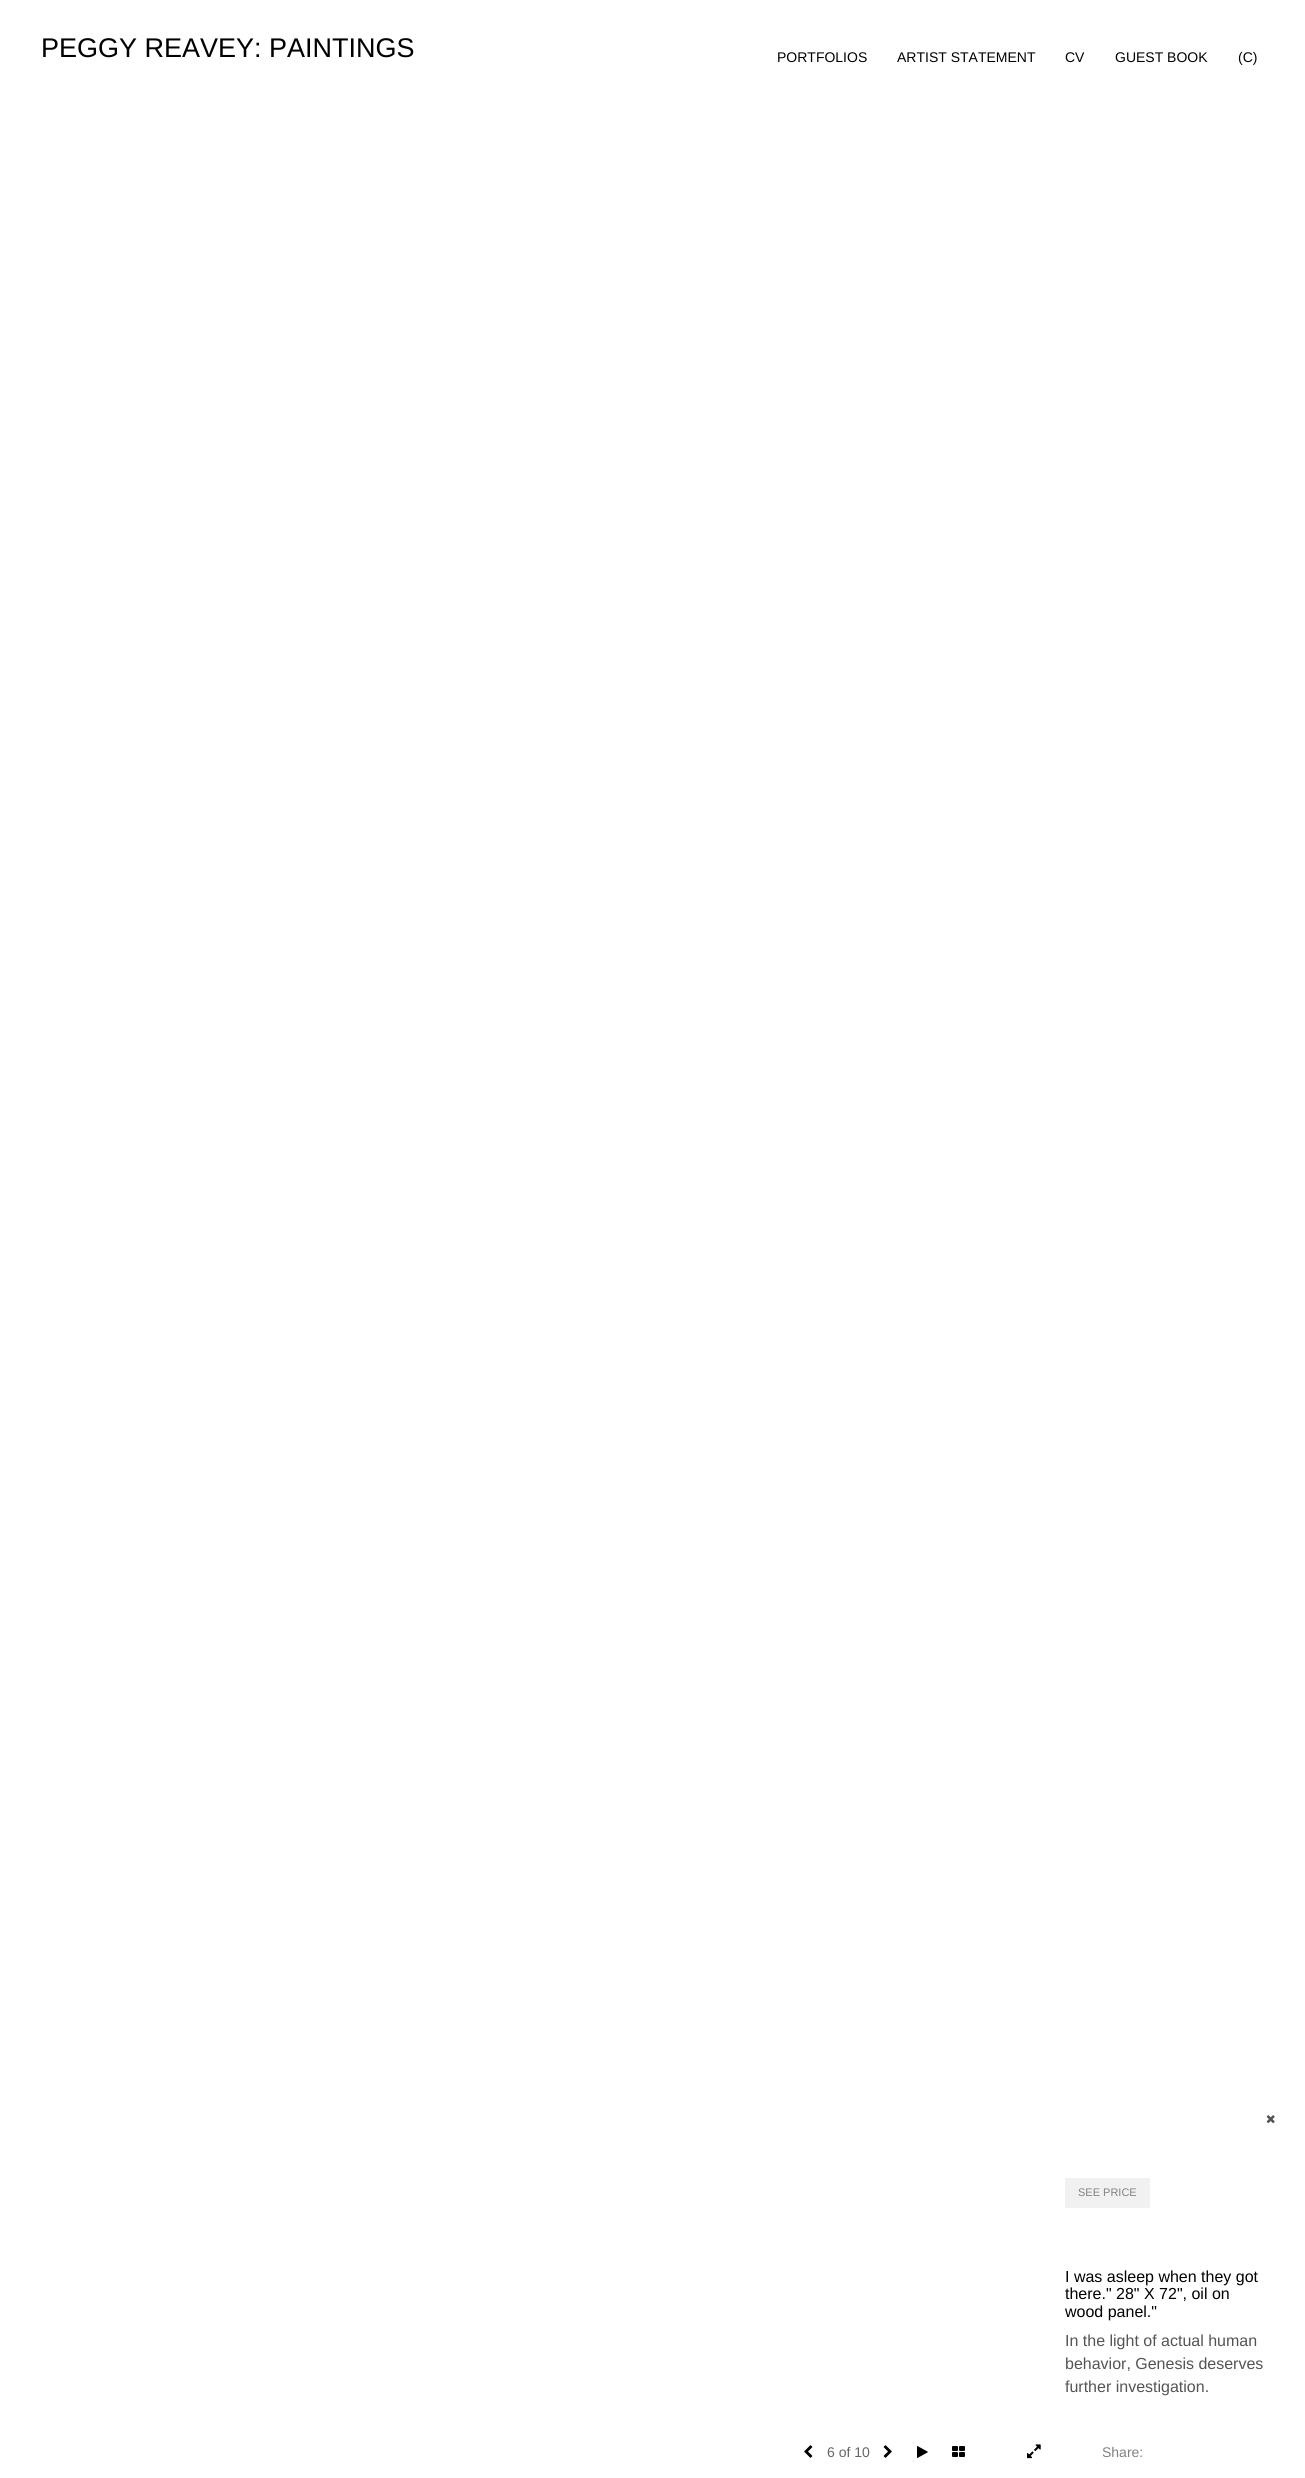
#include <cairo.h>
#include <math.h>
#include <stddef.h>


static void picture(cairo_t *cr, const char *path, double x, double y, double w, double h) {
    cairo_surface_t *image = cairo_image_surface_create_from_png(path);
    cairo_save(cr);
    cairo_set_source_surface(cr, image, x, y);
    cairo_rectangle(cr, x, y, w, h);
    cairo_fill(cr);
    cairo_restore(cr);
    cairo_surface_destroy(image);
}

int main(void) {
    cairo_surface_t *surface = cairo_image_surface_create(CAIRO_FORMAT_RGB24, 1305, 2478);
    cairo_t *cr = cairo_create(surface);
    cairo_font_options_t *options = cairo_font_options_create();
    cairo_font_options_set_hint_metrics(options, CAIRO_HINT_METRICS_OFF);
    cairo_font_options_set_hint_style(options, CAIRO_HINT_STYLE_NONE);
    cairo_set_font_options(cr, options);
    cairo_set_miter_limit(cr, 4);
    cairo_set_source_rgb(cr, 1, 1, 1);
    cairo_paint(cr);
    cairo_select_font_face(cr, "Liberation Sans", CAIRO_FONT_SLANT_NORMAL, CAIRO_FONT_WEIGHT_NORMAL);
    cairo_set_font_size(cr, 27);
    cairo_set_source_rgb(cr, 0, 0, 0);
    cairo_move_to(cr, 41, 57);
    cairo_show_text(cr, "PEGGY REAVEY: PAINTINGS");
    cairo_set_font_size(cr, 14);
    cairo_move_to(cr, 777, 62);
    cairo_show_text(cr, "PORTFOLIOS");
    cairo_move_to(cr, 897, 62);
    cairo_show_text(cr, "ARTIST STATEMENT");
    cairo_move_to(cr, 1065, 62);
    cairo_show_text(cr, "CV");
    cairo_move_to(cr, 1115, 62);
    cairo_show_text(cr, "GUEST BOOK");
    cairo_move_to(cr, 1238, 62);
    cairo_show_text(cr, "(C)");
    picture(cr, "img1.png", 1266, 2115, 9, 9);
    cairo_set_source_rgb(cr, 0.945, 0.945, 0.945);
    cairo_rectangle(cr, 1065, 2178, 85, 30);
    cairo_fill(cr);
    cairo_set_font_size(cr, 11);
    cairo_set_source_rgb(cr, 0.51, 0.51, 0.51);
    cairo_move_to(cr, 1078, 2196);
    cairo_show_text(cr, "SEE PRICE");
    cairo_set_font_size(cr, 16);
    cairo_set_source_rgb(cr, 0, 0, 0);
    cairo_move_to(cr, 1065, 2282);
    cairo_show_text(cr, "I was asleep when they got");
    cairo_move_to(cr, 1065, 2299);
    cairo_show_text(cr, "there.\" 28\" X 72\", oil on");
    cairo_move_to(cr, 1065, 2317);
    cairo_show_text(cr, "wood panel.\"");
    cairo_set_source_rgb(cr, 0.329, 0.329, 0.329);
    cairo_move_to(cr, 1065, 2346);
    cairo_show_text(cr, "In the light of actual human");
    cairo_move_to(cr, 1065, 2369);
    cairo_show_text(cr, "behavior, Genesis deserves");
    cairo_move_to(cr, 1065, 2392);
    cairo_show_text(cr, "further investigation.");
    picture(cr, "img2.png", 804, 2445, 9, 13);
    cairo_set_font_size(cr, 14);
    cairo_set_source_rgb(cr, 0.4, 0.4, 0.4);
    cairo_move_to(cr, 827, 2457);
    cairo_show_text(cr, "6 of 10");
    picture(cr, "img3.png", 883, 2445, 9, 13);
    picture(cr, "img4.png", 917, 2446, 11, 12);
    picture(cr, "img5.png", 952, 2446, 13, 11);
    picture(cr, "img6.png", 1027, 2444, 14, 15);
    cairo_set_source_rgb(cr, 0.51, 0.51, 0.51);
    cairo_move_to(cr, 1102, 2457);
    cairo_show_text(cr, "Share:");
    cairo_surface_write_to_png(surface, "page.png");
    cairo_font_options_destroy(options);
    cairo_destroy(cr);
    cairo_surface_destroy(surface);
    return 0;
}
